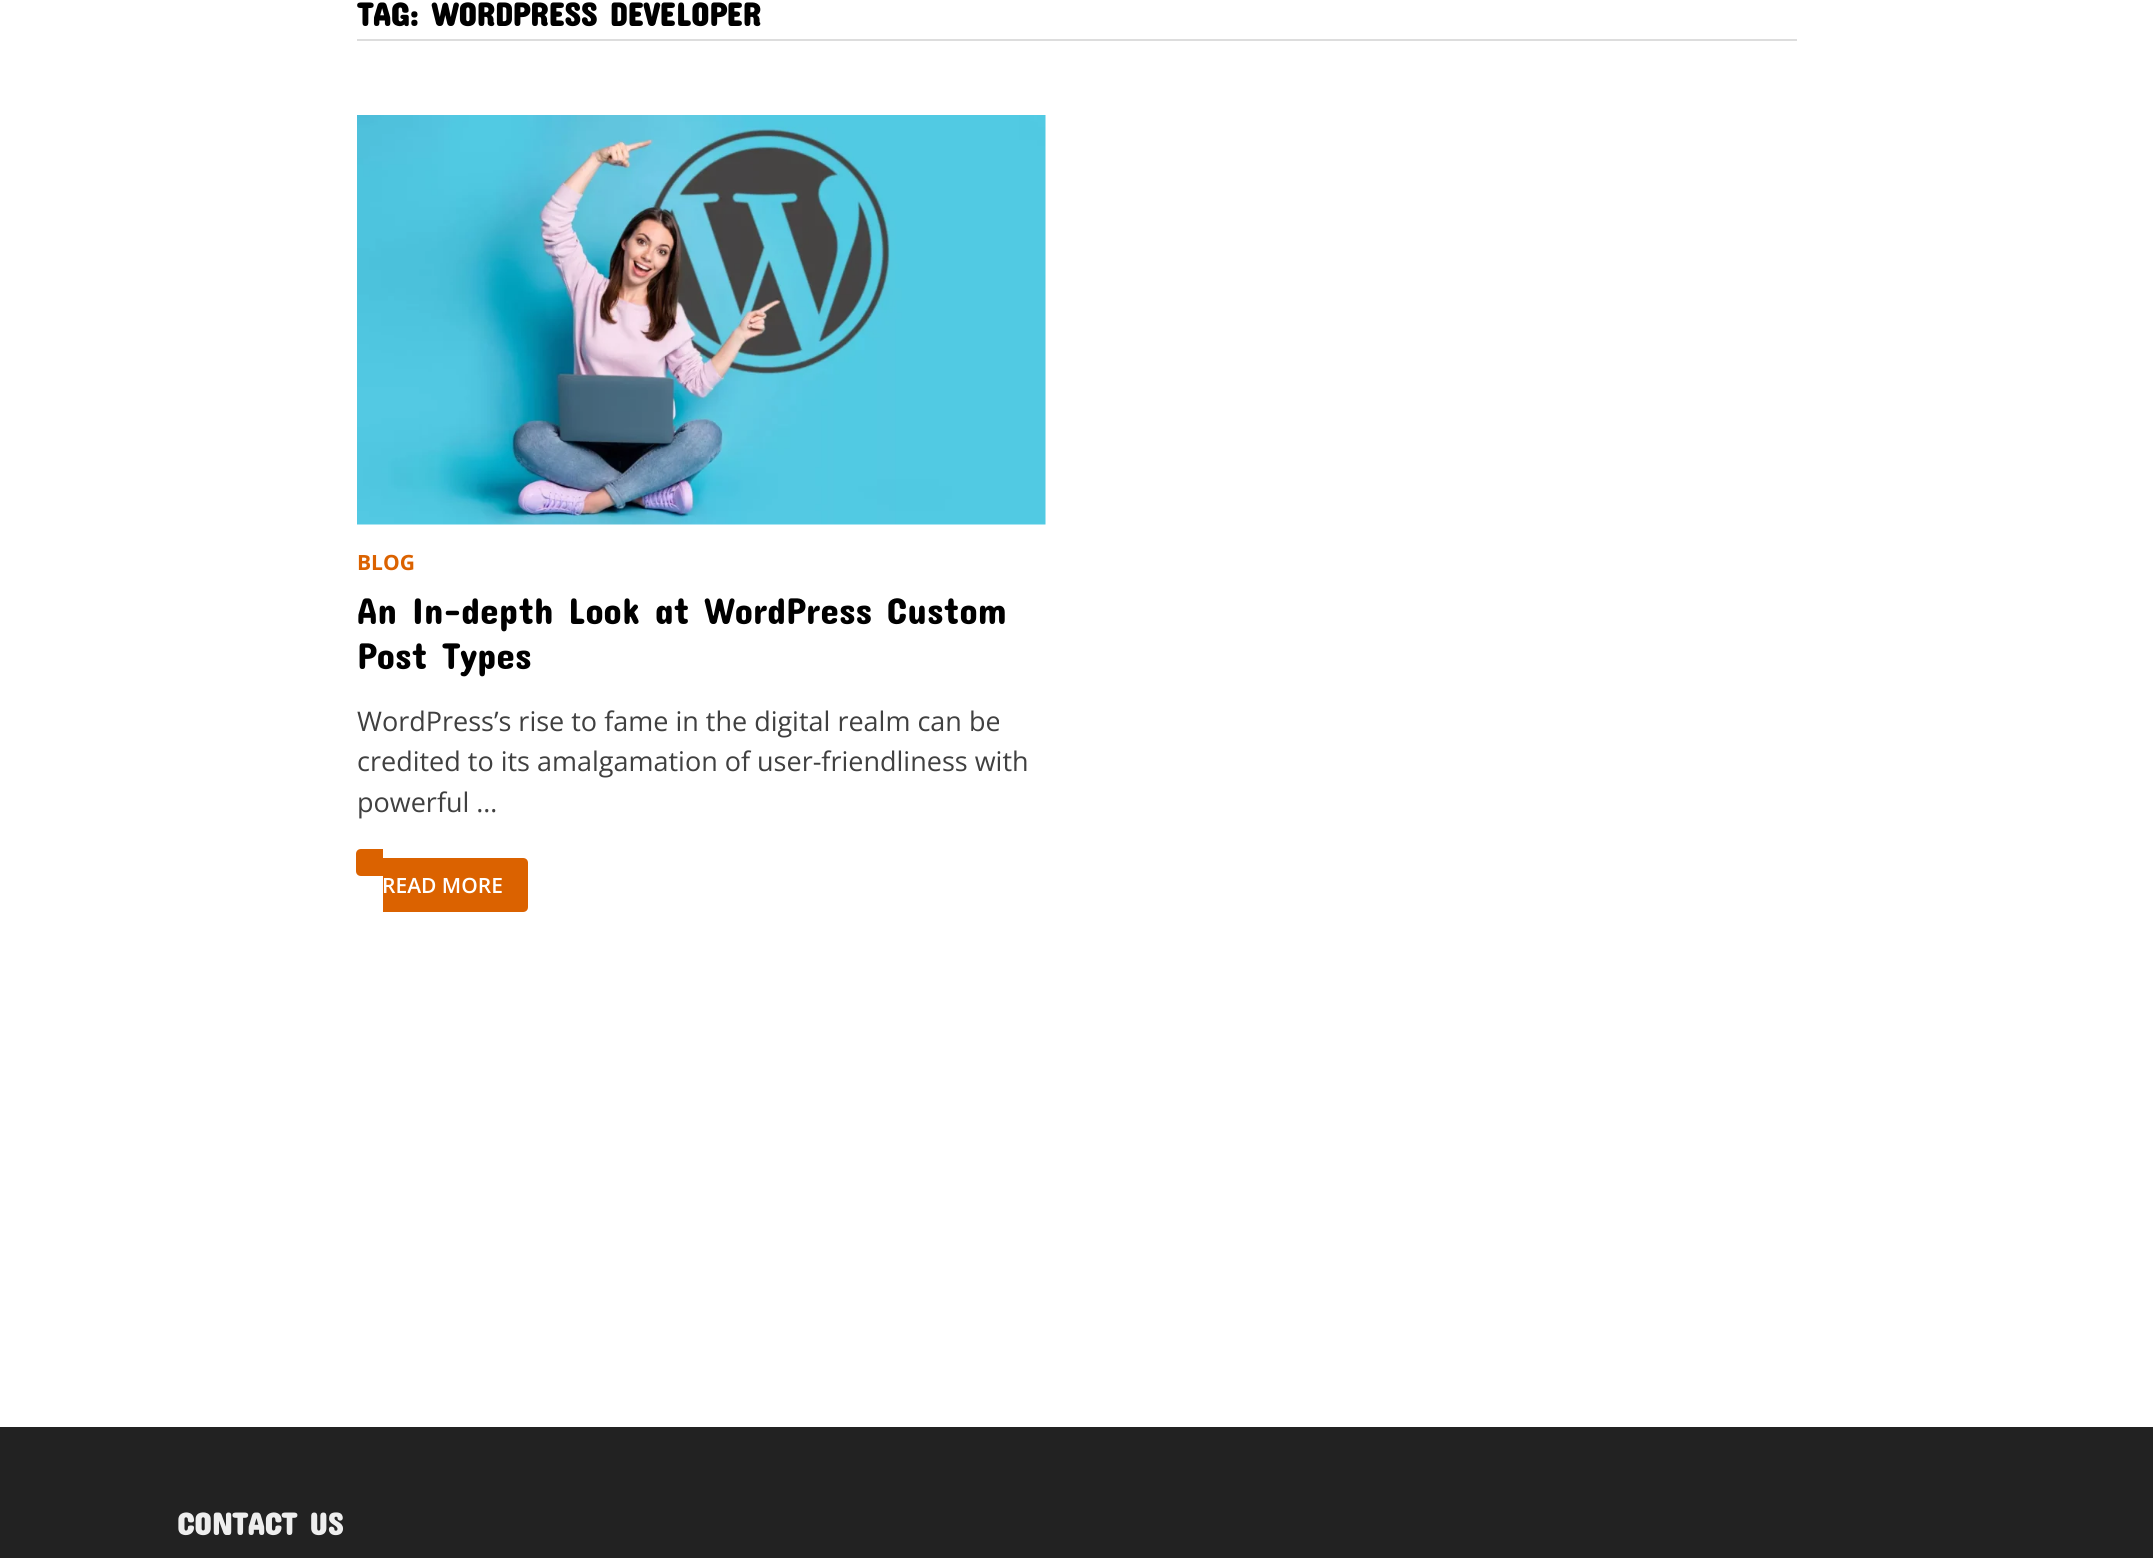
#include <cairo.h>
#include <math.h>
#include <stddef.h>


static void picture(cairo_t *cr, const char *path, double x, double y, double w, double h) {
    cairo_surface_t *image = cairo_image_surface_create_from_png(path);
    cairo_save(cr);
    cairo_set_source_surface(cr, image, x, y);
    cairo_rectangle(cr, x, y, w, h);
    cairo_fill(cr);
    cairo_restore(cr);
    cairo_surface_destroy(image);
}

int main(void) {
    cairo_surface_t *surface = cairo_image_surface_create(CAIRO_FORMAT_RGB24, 2153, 1558);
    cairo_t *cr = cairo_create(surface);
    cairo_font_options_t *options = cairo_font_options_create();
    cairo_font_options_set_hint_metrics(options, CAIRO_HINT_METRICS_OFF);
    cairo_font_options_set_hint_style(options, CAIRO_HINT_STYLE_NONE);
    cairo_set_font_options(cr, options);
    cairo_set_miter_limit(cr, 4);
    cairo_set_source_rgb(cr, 1, 1, 1);
    cairo_paint(cr);
    cairo_set_source_rgb(cr, 0.867, 0.867, 0.867);
    cairo_rectangle(cr, 357, 39, 1440, 2);
    cairo_fill(cr);
    cairo_select_font_face(cr, "Concert One", CAIRO_FONT_SLANT_NORMAL, CAIRO_FONT_WEIGHT_BOLD);
    cairo_set_font_size(cr, 33);
    cairo_set_source_rgb(cr, 0, 0, 0);
    cairo_move_to(cr, 357, 26);
    cairo_show_text(cr, "TAG: WORDPRESS DEVELOPER");
    picture(cr, "img1.png", 357, 115, 689, 410);
    cairo_select_font_face(cr, "Open Sans", CAIRO_FONT_SLANT_NORMAL, CAIRO_FONT_WEIGHT_BOLD);
    cairo_set_font_size(cr, 21);
    cairo_set_source_rgb(cr, 0.859, 0.384, 0);
    cairo_move_to(cr, 357, 570);
    cairo_show_text(cr, "BLOG");
    cairo_select_font_face(cr, "Concert One", CAIRO_FONT_SLANT_NORMAL, CAIRO_FONT_WEIGHT_NORMAL);
    cairo_set_font_size(cr, 37.5);
    cairo_set_source_rgb(cr, 0, 0, 0);
    cairo_move_to(cr, 357, 624);
    cairo_show_text(cr, "An In-depth Look at WordPress Custom");
    cairo_move_to(cr, 357, 669);
    cairo_show_text(cr, "Post Types");
    cairo_select_font_face(cr, "Open Sans", CAIRO_FONT_SLANT_NORMAL, CAIRO_FONT_WEIGHT_NORMAL);
    cairo_set_font_size(cr, 27);
    cairo_set_source_rgb(cr, 0.251, 0.251, 0.251);
    cairo_move_to(cr, 357, 731);
    cairo_show_text(cr, "WordPress’s rise to fame in the digital realm can be");
    cairo_move_to(cr, 357, 771);
    cairo_show_text(cr, "credited to its amalgamation of user-friendliness with");
    cairo_move_to(cr, 357, 812);
    cairo_show_text(cr, "powerful …");
    cairo_set_source_rgb(cr, 0.859, 0.384, 0);
    cairo_new_path(cr);
    cairo_move_to(cr, 383, 858);
    cairo_line_to(cr, 523, 858);
    cairo_curve_to(cr, 526, 858, 528, 860, 528, 863);
    cairo_line_to(cr, 528, 907);
    cairo_curve_to(cr, 528, 910, 526, 912, 523, 912);
    cairo_line_to(cr, 383, 912);
    cairo_close_path(cr);
    cairo_fill(cr);
    cairo_select_font_face(cr, "Open Sans SemiBold", CAIRO_FONT_SLANT_NORMAL, CAIRO_FONT_WEIGHT_NORMAL);
    cairo_set_font_size(cr, 21);
    cairo_set_source_rgb(cr, 1, 1, 1);
    cairo_move_to(cr, 382, 893);
    cairo_show_text(cr, "READ MORE");
    cairo_set_source_rgb(cr, 0.859, 0.384, 0);
    cairo_new_path(cr);
    cairo_move_to(cr, 361, 849);
    cairo_line_to(cr, 383, 849);
    cairo_line_to(cr, 383, 876);
    cairo_line_to(cr, 361, 876);
    cairo_curve_to(cr, 358, 876, 356, 874, 356, 871);
    cairo_line_to(cr, 356, 854);
    cairo_curve_to(cr, 356, 851, 358, 849, 361, 849);
    cairo_close_path(cr);
    cairo_fill(cr);
    cairo_set_source_rgb(cr, 0.133, 0.133, 0.133);
    cairo_rectangle(cr, 0, 1427, 2153, 131);
    cairo_fill(cr);
    cairo_select_font_face(cr, "Concert One", CAIRO_FONT_SLANT_NORMAL, CAIRO_FONT_WEIGHT_BOLD);
    cairo_set_font_size(cr, 31.5);
    cairo_set_source_rgb(cr, 0.933, 0.933, 0.933);
    cairo_move_to(cr, 177, 1535);
    cairo_show_text(cr, "CONTACT US");
    cairo_surface_write_to_png(surface, "page.png");
    cairo_font_options_destroy(options);
    cairo_destroy(cr);
    cairo_surface_destroy(surface);
    return 0;
}
